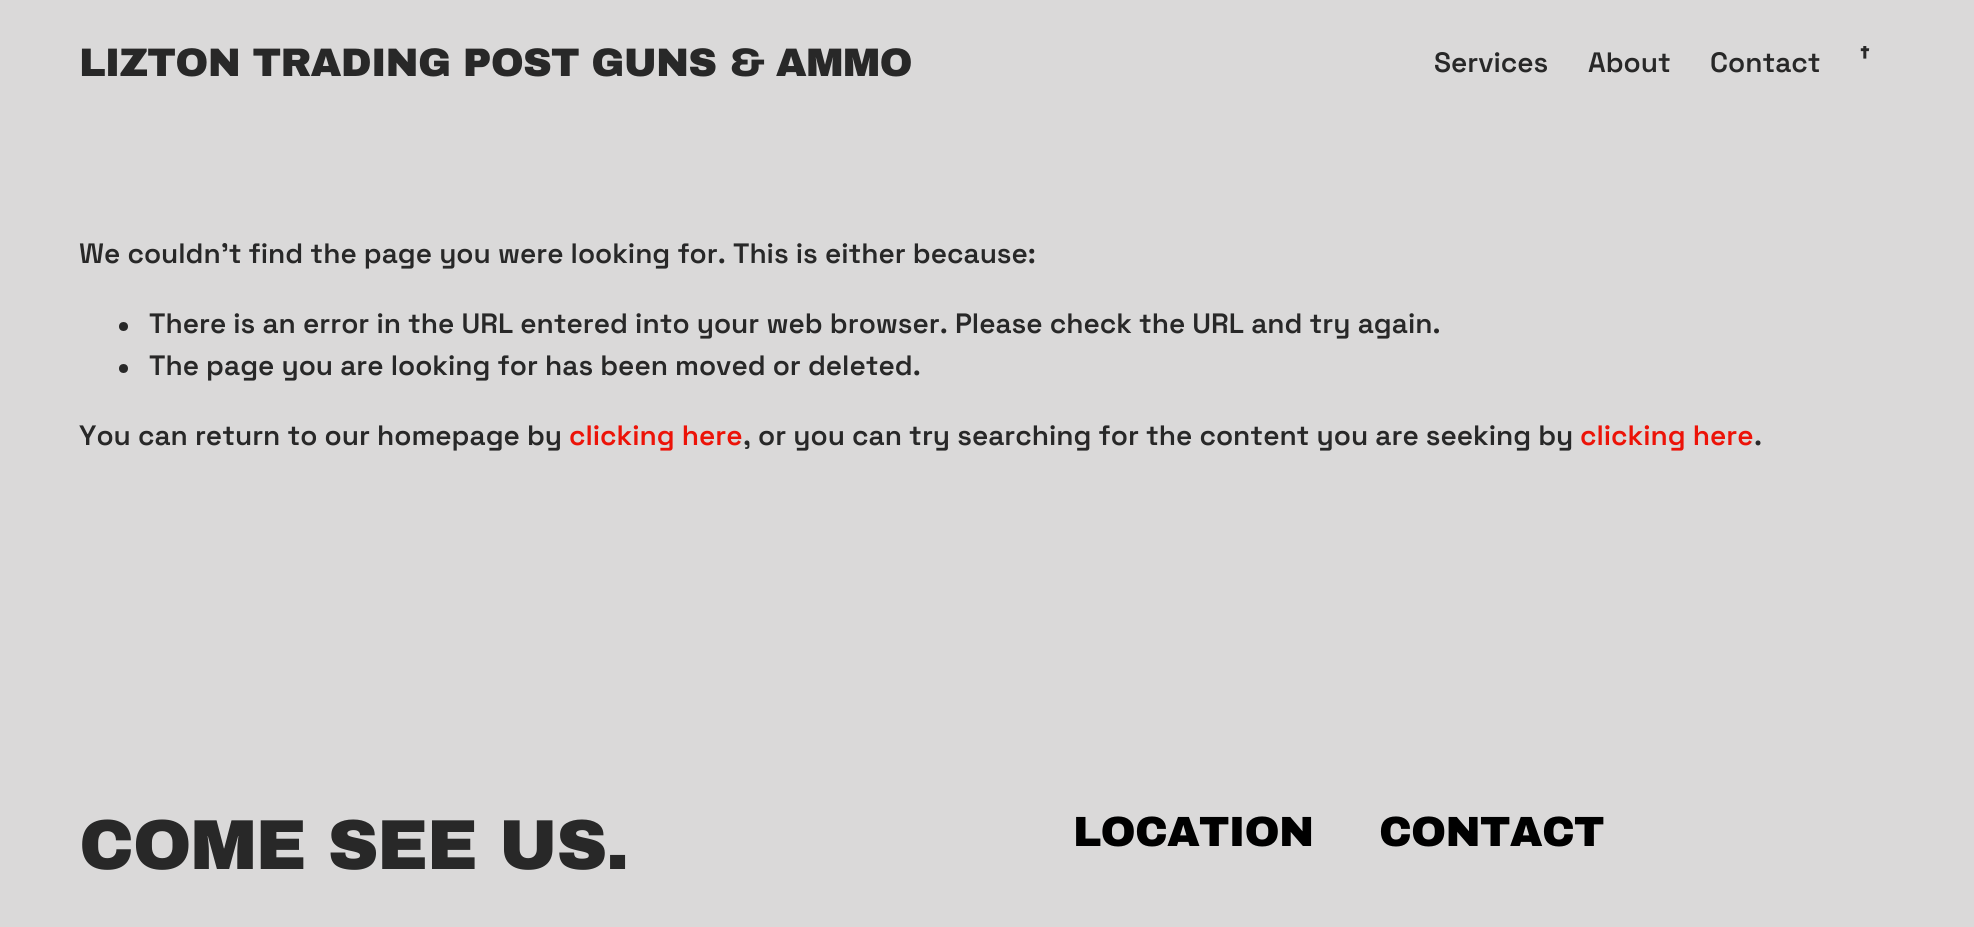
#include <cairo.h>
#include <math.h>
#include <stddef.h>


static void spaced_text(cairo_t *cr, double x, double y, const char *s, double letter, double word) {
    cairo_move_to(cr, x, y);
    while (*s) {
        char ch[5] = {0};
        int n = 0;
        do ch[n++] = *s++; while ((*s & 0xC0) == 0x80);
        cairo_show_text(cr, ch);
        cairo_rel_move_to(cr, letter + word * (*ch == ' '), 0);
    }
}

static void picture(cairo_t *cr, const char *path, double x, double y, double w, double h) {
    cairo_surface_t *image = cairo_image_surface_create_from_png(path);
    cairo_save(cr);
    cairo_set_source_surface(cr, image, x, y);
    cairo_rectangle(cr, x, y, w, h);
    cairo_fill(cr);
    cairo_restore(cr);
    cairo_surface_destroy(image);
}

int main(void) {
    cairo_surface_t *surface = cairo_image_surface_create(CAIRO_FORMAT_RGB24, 1974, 927);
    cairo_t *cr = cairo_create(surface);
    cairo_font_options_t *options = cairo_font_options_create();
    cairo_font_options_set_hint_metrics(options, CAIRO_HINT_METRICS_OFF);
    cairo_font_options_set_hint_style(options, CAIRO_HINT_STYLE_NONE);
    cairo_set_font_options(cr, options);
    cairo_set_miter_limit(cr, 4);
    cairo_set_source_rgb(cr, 0.855, 0.851, 0.851);
    cairo_paint(cr);
    cairo_select_font_face(cr, "Archivo Black Black", CAIRO_FONT_SLANT_NORMAL, CAIRO_FONT_WEIGHT_NORMAL);
    cairo_set_font_size(cr, 39.8);
    cairo_set_source_rgb(cr, 0.157, 0.157, 0.157);
    spaced_text(cr, 79, 76, "LIZTON TRADING POST GUNS & AMMO", -0.8, 0);
    cairo_select_font_face(cr, "Space Grotesk SemiBold", CAIRO_FONT_SLANT_NORMAL, CAIRO_FONT_WEIGHT_NORMAL);
    cairo_set_font_size(cr, 28);
    cairo_move_to(cr, 1434, 72);
    cairo_show_text(cr, "Services");
    cairo_move_to(cr, 1588, 72);
    cairo_show_text(cr, "About");
    cairo_move_to(cr, 1710, 72);
    cairo_show_text(cr, "Contact");
    picture(cr, "img1.png", 1860, 46, 10, 13);
    cairo_move_to(cr, 79, 263);
    cairo_show_text(cr, "We couldn't find the page you were looking for. This is either because:");
    cairo_new_path(cr);
    cairo_arc(cr, 123.5, 326.5, 4.5, 0, 2 * M_PI);
    cairo_fill(cr);
    cairo_move_to(cr, 149, 333);
    cairo_show_text(cr, "There is an error in the URL entered into your web browser. Please check the URL and try again.");
    cairo_new_path(cr);
    cairo_arc(cr, 123.5, 368.5, 4.5, 0, 2 * M_PI);
    cairo_fill(cr);
    cairo_move_to(cr, 149, 375);
    cairo_show_text(cr, "The page you are looking for has been moved or deleted.");
    cairo_move_to(cr, 79, 445);
    cairo_show_text(cr, "You can return to our homepage by");
    cairo_set_source_rgb(cr, 0.922, 0.075, 0.035);
    cairo_move_to(cr, 569, 445);
    cairo_show_text(cr, "clicking here");
    cairo_set_source_rgb(cr, 0.157, 0.157, 0.157);
    cairo_move_to(cr, 743, 445);
    cairo_show_text(cr, ", or you can try searching for the content you are seeking by");
    cairo_set_source_rgb(cr, 0.922, 0.075, 0.035);
    cairo_move_to(cr, 1580, 445);
    cairo_show_text(cr, "clicking here");
    cairo_set_source_rgb(cr, 0.157, 0.157, 0.157);
    cairo_move_to(cr, 1754, 445);
    cairo_show_text(cr, ".");
    cairo_select_font_face(cr, "Archivo Black Black", CAIRO_FONT_SLANT_NORMAL, CAIRO_FONT_WEIGHT_NORMAL);
    cairo_set_font_size(cr, 70.75);
    spaced_text(cr, 79, 869, "COME SEE US.", -1.4, 0);
    cairo_set_font_size(cr, 42.25);
    cairo_set_source_rgb(cr, 0, 0, 0);
    spaced_text(cr, 1073, 846, "LOCATION", -0.75, 0);
    spaced_text(cr, 1379, 846, "CONTACT", -0.75, 0);
    cairo_surface_write_to_png(surface, "page.png");
    cairo_font_options_destroy(options);
    cairo_destroy(cr);
    cairo_surface_destroy(surface);
    return 0;
}
